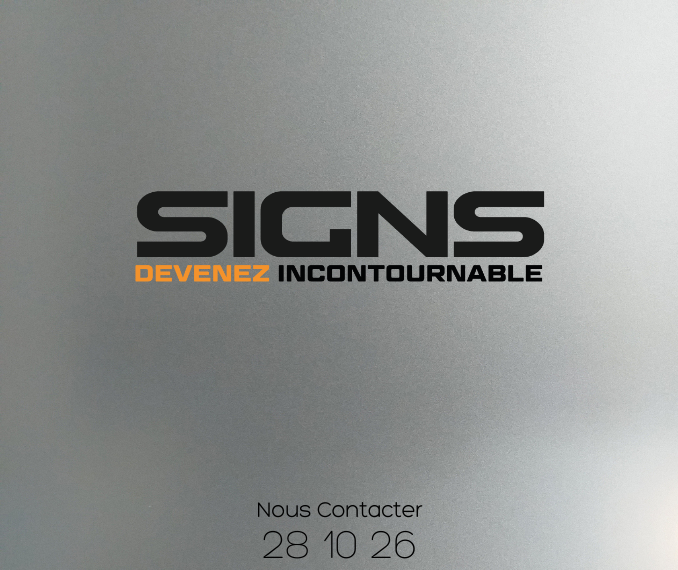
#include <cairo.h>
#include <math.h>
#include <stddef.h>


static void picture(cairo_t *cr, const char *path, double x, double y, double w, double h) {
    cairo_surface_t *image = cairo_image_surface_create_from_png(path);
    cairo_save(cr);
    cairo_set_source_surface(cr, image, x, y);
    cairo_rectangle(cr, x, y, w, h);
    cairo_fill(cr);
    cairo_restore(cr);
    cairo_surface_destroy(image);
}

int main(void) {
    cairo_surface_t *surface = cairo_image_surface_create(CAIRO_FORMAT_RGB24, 678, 570);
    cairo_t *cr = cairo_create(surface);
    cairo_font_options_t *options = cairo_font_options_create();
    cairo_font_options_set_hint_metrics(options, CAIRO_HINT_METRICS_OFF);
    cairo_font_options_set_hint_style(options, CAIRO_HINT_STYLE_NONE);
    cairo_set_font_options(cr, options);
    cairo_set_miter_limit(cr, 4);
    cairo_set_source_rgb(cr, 1, 1, 1);
    cairo_paint(cr);
    picture(cr, "img1.png", 0, 0, 678, 570);
    picture(cr, "img2.png", 135, 191, 410, 91);
    cairo_select_font_face(cr, "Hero", CAIRO_FONT_SLANT_NORMAL, CAIRO_FONT_WEIGHT_BOLD);
    cairo_set_font_size(cr, 22);
    cairo_set_source_rgb(cr, 0, 0, 0);
    cairo_move_to(cr, 256, 517);
    cairo_show_text(cr, "Nous Contacter");
    cairo_select_font_face(cr, "Hero Light", CAIRO_FONT_SLANT_NORMAL, CAIRO_FONT_WEIGHT_NORMAL);
    cairo_set_font_size(cr, 42);
    cairo_move_to(cr, 261, 558);
    cairo_show_text(cr, "28 10 26");
    cairo_surface_write_to_png(surface, "page.png");
    cairo_font_options_destroy(options);
    cairo_destroy(cr);
    cairo_surface_destroy(surface);
    return 0;
}
